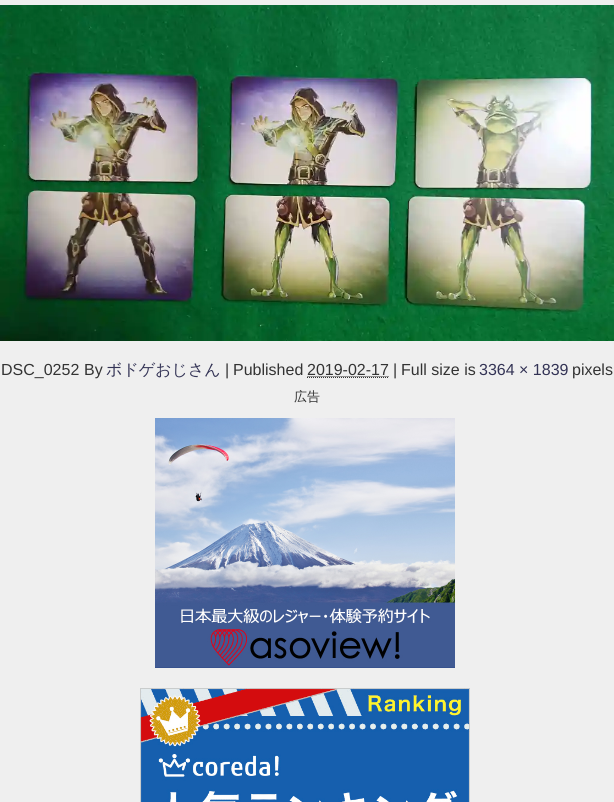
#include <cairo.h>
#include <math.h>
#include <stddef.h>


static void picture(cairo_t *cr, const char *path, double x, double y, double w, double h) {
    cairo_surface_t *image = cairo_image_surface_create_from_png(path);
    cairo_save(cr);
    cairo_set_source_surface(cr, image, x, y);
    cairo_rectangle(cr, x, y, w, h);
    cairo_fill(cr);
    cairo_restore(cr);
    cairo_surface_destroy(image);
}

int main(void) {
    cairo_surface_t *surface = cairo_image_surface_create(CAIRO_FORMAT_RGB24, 614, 802);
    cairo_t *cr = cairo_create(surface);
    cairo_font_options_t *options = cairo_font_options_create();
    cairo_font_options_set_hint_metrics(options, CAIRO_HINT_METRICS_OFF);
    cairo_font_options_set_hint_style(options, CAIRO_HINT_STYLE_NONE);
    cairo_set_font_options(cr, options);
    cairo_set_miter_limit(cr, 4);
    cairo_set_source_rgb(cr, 0.937, 0.937, 0.937);
    cairo_paint(cr);
    picture(cr, "img1.png", 0, 5, 614, 336);
    cairo_select_font_face(cr, "Liberation Sans", CAIRO_FONT_SLANT_NORMAL, CAIRO_FONT_WEIGHT_NORMAL);
    cairo_set_font_size(cr, 16);
    cairo_set_source_rgb(cr, 0.2, 0.2, 0.2);
    cairo_move_to(cr, 1, 375);
    cairo_show_text(cr, "DSC_0252");
    cairo_move_to(cr, 84, 375);
    cairo_show_text(cr, "By");
    cairo_select_font_face(cr, "WenQuanYi Zen Hei Medium", CAIRO_FONT_SLANT_NORMAL, CAIRO_FONT_WEIGHT_NORMAL);
    cairo_set_source_rgb(cr, 0.2, 0.2, 0.333);
    cairo_move_to(cr, 106, 375);
    cairo_show_text(cr, "ボドゲおじさん");
    cairo_select_font_face(cr, "Liberation Sans", CAIRO_FONT_SLANT_NORMAL, CAIRO_FONT_WEIGHT_NORMAL);
    cairo_set_source_rgb(cr, 0.2, 0.2, 0.2);
    cairo_move_to(cr, 225, 375);
    cairo_show_text(cr, "|");
    cairo_move_to(cr, 233, 375);
    cairo_show_text(cr, "Published");
    cairo_move_to(cr, 307, 375);
    cairo_show_text(cr, "2019-02-17");
    cairo_new_path(cr);
    cairo_move_to(cr, 307, 377.5);
    cairo_line_to(cr, 389, 377.5);
    cairo_set_line_width(cr, 1);
    cairo_set_dash(cr, (double[]){1, 1}, 2, 0);
    cairo_stroke(cr);
    cairo_new_path(cr);
    cairo_move_to(cr, 307.5, 376.5);
    cairo_line_to(cr, 389, 376.5);
    cairo_stroke(cr);
    cairo_move_to(cr, 393, 375);
    cairo_show_text(cr, "|");
    cairo_move_to(cr, 401, 375);
    cairo_show_text(cr, "Full size is");
    cairo_set_source_rgb(cr, 0.2, 0.2, 0.333);
    cairo_move_to(cr, 479, 375);
    cairo_show_text(cr, "3364 × 1839");
    cairo_set_source_rgb(cr, 0.2, 0.2, 0.2);
    cairo_move_to(cr, 572, 375);
    cairo_show_text(cr, "pixels");
    cairo_select_font_face(cr, "WenQuanYi Zen Hei Medium", CAIRO_FONT_SLANT_NORMAL, CAIRO_FONT_WEIGHT_NORMAL);
    cairo_set_font_size(cr, 13);
    cairo_move_to(cr, 294, 401);
    cairo_show_text(cr, "広告");
    picture(cr, "img2.png", 155, 418, 300, 250);
    picture(cr, "img3.png", 140, 688, 330, 114);
    cairo_surface_write_to_png(surface, "page.png");
    cairo_font_options_destroy(options);
    cairo_destroy(cr);
    cairo_surface_destroy(surface);
    return 0;
}
